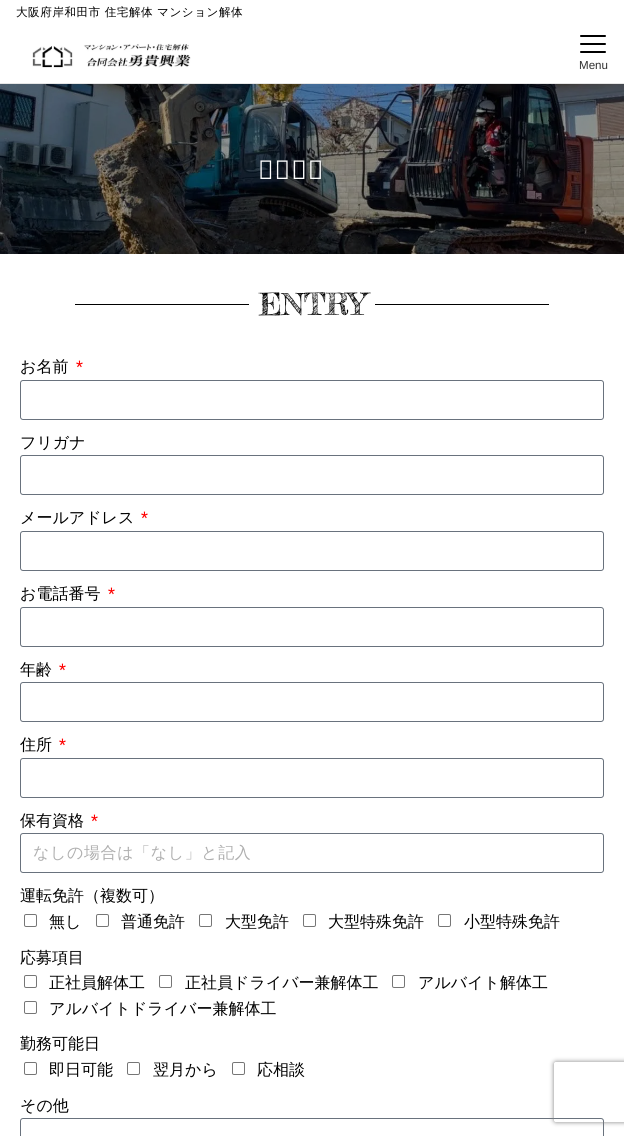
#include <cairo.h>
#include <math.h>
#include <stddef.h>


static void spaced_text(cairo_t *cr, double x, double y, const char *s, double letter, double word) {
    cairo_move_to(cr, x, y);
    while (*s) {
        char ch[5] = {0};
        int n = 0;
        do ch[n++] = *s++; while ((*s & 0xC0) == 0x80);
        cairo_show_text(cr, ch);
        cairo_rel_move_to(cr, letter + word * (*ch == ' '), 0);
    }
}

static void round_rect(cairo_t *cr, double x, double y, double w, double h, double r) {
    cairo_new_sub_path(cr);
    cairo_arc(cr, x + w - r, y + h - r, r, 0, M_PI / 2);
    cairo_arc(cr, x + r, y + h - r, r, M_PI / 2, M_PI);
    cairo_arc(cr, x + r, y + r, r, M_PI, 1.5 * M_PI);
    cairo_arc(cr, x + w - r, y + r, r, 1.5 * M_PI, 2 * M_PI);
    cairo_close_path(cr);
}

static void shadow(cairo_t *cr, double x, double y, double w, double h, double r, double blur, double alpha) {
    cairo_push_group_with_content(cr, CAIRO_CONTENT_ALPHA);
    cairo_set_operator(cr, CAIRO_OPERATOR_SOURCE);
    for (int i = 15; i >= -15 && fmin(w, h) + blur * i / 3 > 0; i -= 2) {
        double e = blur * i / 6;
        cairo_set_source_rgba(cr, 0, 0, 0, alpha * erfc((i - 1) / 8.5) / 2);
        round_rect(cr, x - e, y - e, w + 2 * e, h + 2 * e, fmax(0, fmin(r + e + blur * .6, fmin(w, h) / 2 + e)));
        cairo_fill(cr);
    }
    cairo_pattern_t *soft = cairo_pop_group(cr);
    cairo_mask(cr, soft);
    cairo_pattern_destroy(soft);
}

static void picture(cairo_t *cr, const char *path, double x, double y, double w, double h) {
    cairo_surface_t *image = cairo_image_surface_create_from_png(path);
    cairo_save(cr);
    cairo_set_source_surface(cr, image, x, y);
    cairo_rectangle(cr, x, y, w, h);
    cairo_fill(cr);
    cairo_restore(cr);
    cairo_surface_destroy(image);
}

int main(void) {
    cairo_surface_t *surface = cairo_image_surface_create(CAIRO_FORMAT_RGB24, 624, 1136);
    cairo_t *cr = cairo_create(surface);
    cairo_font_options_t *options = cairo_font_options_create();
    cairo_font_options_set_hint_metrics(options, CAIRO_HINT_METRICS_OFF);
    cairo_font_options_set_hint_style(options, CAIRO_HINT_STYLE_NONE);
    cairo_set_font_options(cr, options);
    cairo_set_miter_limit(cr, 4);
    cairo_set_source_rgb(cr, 1, 1, 1);
    cairo_paint(cr);
    cairo_set_source_rgb(cr, 0.902, 0.902, 0.902);
    cairo_rectangle(cr, 0, 83, 624, 1);
    cairo_fill(cr);
    cairo_select_font_face(cr, "WenQuanYi Zen Hei Medium", CAIRO_FONT_SLANT_NORMAL, CAIRO_FONT_WEIGHT_NORMAL);
    cairo_set_font_size(cr, 11.6);
    cairo_set_source_rgb(cr, 0, 0, 0);
    spaced_text(cr, 16, 16, "大阪府岸和田市 住宅解体 マンション解体", 0.5, 0);
    picture(cr, "img1.png", 32, 43, 159, 25);
    round_rect(cr, 580, 35, 26, 2, 1);
    cairo_fill(cr);
    round_rect(cr, 580, 43, 26, 2, 1);
    cairo_fill(cr);
    round_rect(cr, 580, 51, 26, 2, 1);
    cairo_fill(cr);
    cairo_select_font_face(cr, "Liberation Sans", CAIRO_FONT_SLANT_NORMAL, CAIRO_FONT_WEIGHT_NORMAL);
    cairo_set_source_rgb(cr, 0.188, 0.188, 0.188);
    cairo_move_to(cr, 579, 69);
    cairo_show_text(cr, "Menu");
    picture(cr, "img2.png", 0, 84, 624, 170);
    cairo_select_font_face(cr, "Noto Sans SemiBold", CAIRO_FONT_SLANT_ITALIC, CAIRO_FONT_WEIGHT_NORMAL);
    cairo_set_font_size(cr, 26);
    cairo_set_source_rgb(cr, 1, 1, 1);
    spaced_text(cr, 258, 179, "求人応募", 1, 0);
    cairo_set_source_rgb(cr, 0, 0, 0);
    cairo_rectangle(cr, 75, 304, 174, 1);
    cairo_fill(cr);
    cairo_select_font_face(cr, "Fredericka the Great", CAIRO_FONT_SLANT_NORMAL, CAIRO_FONT_WEIGHT_NORMAL);
    cairo_set_font_size(cr, 30);
    cairo_move_to(cr, 259, 315);
    cairo_show_text(cr, "ENTRY");
    cairo_rectangle(cr, 375, 304, 174, 1);
    cairo_fill(cr);
    cairo_select_font_face(cr, "WenQuanYi Zen Hei Medium", CAIRO_FONT_SLANT_NORMAL, CAIRO_FONT_WEIGHT_NORMAL);
    cairo_set_font_size(cr, 16);
    cairo_move_to(cr, 20, 372);
    cairo_show_text(cr, "お名前");
    cairo_select_font_face(cr, "Roboto", CAIRO_FONT_SLANT_NORMAL, CAIRO_FONT_WEIGHT_NORMAL);
    cairo_set_source_rgb(cr, 1, 0, 0);
    cairo_move_to(cr, 76, 372);
    cairo_show_text(cr, "*");
    round_rect(cr, 20.5, 380.5, 583, 39, 2.5);
    cairo_set_source_rgb(cr, 0.412, 0.447, 0.49);
    cairo_set_line_width(cr, 1);
    cairo_stroke(cr);
    cairo_select_font_face(cr, "WenQuanYi Zen Hei Medium", CAIRO_FONT_SLANT_NORMAL, CAIRO_FONT_WEIGHT_NORMAL);
    cairo_set_source_rgb(cr, 0, 0, 0);
    cairo_move_to(cr, 20, 448);
    cairo_show_text(cr, "フリガナ");
    round_rect(cr, 20.5, 455.5, 583, 39, 2.5);
    cairo_set_source_rgb(cr, 0.412, 0.447, 0.49);
    cairo_stroke(cr);
    cairo_set_source_rgb(cr, 0, 0, 0);
    cairo_move_to(cr, 20, 523);
    cairo_show_text(cr, "メールアドレス");
    cairo_select_font_face(cr, "Roboto", CAIRO_FONT_SLANT_NORMAL, CAIRO_FONT_WEIGHT_NORMAL);
    cairo_set_source_rgb(cr, 1, 0, 0);
    cairo_move_to(cr, 141, 523);
    cairo_show_text(cr, "*");
    round_rect(cr, 20.5, 531.5, 583, 39, 2.5);
    cairo_set_source_rgb(cr, 0.412, 0.447, 0.49);
    cairo_stroke(cr);
    cairo_select_font_face(cr, "WenQuanYi Zen Hei Medium", CAIRO_FONT_SLANT_NORMAL, CAIRO_FONT_WEIGHT_NORMAL);
    cairo_set_source_rgb(cr, 0, 0, 0);
    cairo_move_to(cr, 20, 599);
    cairo_show_text(cr, "お電話番号");
    cairo_select_font_face(cr, "Roboto", CAIRO_FONT_SLANT_NORMAL, CAIRO_FONT_WEIGHT_NORMAL);
    cairo_set_source_rgb(cr, 1, 0, 0);
    cairo_move_to(cr, 108, 599);
    cairo_show_text(cr, "*");
    round_rect(cr, 20.5, 607.5, 583, 39, 2.5);
    cairo_set_source_rgb(cr, 0.412, 0.447, 0.49);
    cairo_stroke(cr);
    cairo_select_font_face(cr, "WenQuanYi Zen Hei Medium", CAIRO_FONT_SLANT_NORMAL, CAIRO_FONT_WEIGHT_NORMAL);
    cairo_set_source_rgb(cr, 0, 0, 0);
    cairo_move_to(cr, 20, 675);
    cairo_show_text(cr, "年齢");
    cairo_select_font_face(cr, "Roboto", CAIRO_FONT_SLANT_NORMAL, CAIRO_FONT_WEIGHT_NORMAL);
    cairo_set_source_rgb(cr, 1, 0, 0);
    cairo_move_to(cr, 59, 675);
    cairo_show_text(cr, "*");
    round_rect(cr, 20.5, 682.5, 583, 39, 2.5);
    cairo_set_source_rgb(cr, 0.412, 0.447, 0.49);
    cairo_stroke(cr);
    cairo_select_font_face(cr, "WenQuanYi Zen Hei Medium", CAIRO_FONT_SLANT_NORMAL, CAIRO_FONT_WEIGHT_NORMAL);
    cairo_set_source_rgb(cr, 0, 0, 0);
    cairo_move_to(cr, 20, 750);
    cairo_show_text(cr, "住所");
    cairo_select_font_face(cr, "Roboto", CAIRO_FONT_SLANT_NORMAL, CAIRO_FONT_WEIGHT_NORMAL);
    cairo_set_source_rgb(cr, 1, 0, 0);
    cairo_move_to(cr, 59, 750);
    cairo_show_text(cr, "*");
    round_rect(cr, 20.5, 758.5, 583, 39, 2.5);
    cairo_set_source_rgb(cr, 0.412, 0.447, 0.49);
    cairo_stroke(cr);
    cairo_select_font_face(cr, "WenQuanYi Zen Hei Medium", CAIRO_FONT_SLANT_NORMAL, CAIRO_FONT_WEIGHT_NORMAL);
    cairo_set_source_rgb(cr, 0, 0, 0);
    cairo_move_to(cr, 20, 826);
    cairo_show_text(cr, "保有資格");
    cairo_select_font_face(cr, "Roboto", CAIRO_FONT_SLANT_NORMAL, CAIRO_FONT_WEIGHT_NORMAL);
    cairo_set_source_rgb(cr, 1, 0, 0);
    cairo_move_to(cr, 91, 826);
    cairo_show_text(cr, "*");
    round_rect(cr, 20.5, 833.5, 583, 39, 2.5);
    cairo_set_source_rgb(cr, 0.412, 0.447, 0.49);
    cairo_stroke(cr);
    cairo_select_font_face(cr, "WenQuanYi Zen Hei Medium", CAIRO_FONT_SLANT_NORMAL, CAIRO_FONT_WEIGHT_NORMAL);
    cairo_set_source_rgb(cr, 0.686, 0.686, 0.686);
    spaced_text(cr, 33, 858, "なしの場合は「なし」と記入", 0.6, 0);
    cairo_set_source_rgb(cr, 0, 0, 0);
    cairo_move_to(cr, 20, 901);
    cairo_show_text(cr, "運転免許（複数可）");
    round_rect(cr, 24.5, 914.5, 12, 12, 1.5);
    cairo_set_source_rgb(cr, 0.463, 0.463, 0.463);
    cairo_stroke(cr);
    cairo_set_source_rgb(cr, 0, 0, 0);
    cairo_move_to(cr, 49, 927);
    cairo_show_text(cr, "無し");
    round_rect(cr, 96.5, 914.5, 12, 12, 1.5);
    cairo_set_source_rgb(cr, 0.463, 0.463, 0.463);
    cairo_stroke(cr);
    cairo_set_source_rgb(cr, 0, 0, 0);
    cairo_move_to(cr, 121, 927);
    cairo_show_text(cr, "普通免許");
    round_rect(cr, 199.5, 914.5, 12, 12, 1.5);
    cairo_set_source_rgb(cr, 0.463, 0.463, 0.463);
    cairo_stroke(cr);
    cairo_set_source_rgb(cr, 0, 0, 0);
    cairo_move_to(cr, 225, 927);
    cairo_show_text(cr, "大型免許");
    round_rect(cr, 303.5, 914.5, 12, 12, 1.5);
    cairo_set_source_rgb(cr, 0.463, 0.463, 0.463);
    cairo_stroke(cr);
    cairo_set_source_rgb(cr, 0, 0, 0);
    cairo_move_to(cr, 328, 927);
    cairo_show_text(cr, "大型特殊免許");
    round_rect(cr, 438.5, 914.5, 12, 12, 1.5);
    cairo_set_source_rgb(cr, 0.463, 0.463, 0.463);
    cairo_stroke(cr);
    cairo_set_source_rgb(cr, 0, 0, 0);
    cairo_move_to(cr, 464, 927);
    cairo_show_text(cr, "小型特殊免許");
    cairo_move_to(cr, 20, 963);
    cairo_show_text(cr, "応募項目");
    round_rect(cr, 24.5, 975.5, 12, 12, 1.5);
    cairo_set_source_rgb(cr, 0.463, 0.463, 0.463);
    cairo_stroke(cr);
    cairo_set_source_rgb(cr, 0, 0, 0);
    cairo_move_to(cr, 49, 988);
    cairo_show_text(cr, "正社員解体工");
    round_rect(cr, 159.5, 975.5, 12, 12, 1.5);
    cairo_set_source_rgb(cr, 0.463, 0.463, 0.463);
    cairo_stroke(cr);
    cairo_set_source_rgb(cr, 0, 0, 0);
    cairo_move_to(cr, 185, 988);
    cairo_show_text(cr, "正社員ドライバー兼解体工");
    round_rect(cr, 392.5, 975.5, 12, 12, 1.5);
    cairo_set_source_rgb(cr, 0.463, 0.463, 0.463);
    cairo_stroke(cr);
    cairo_set_source_rgb(cr, 0, 0, 0);
    cairo_move_to(cr, 418, 988);
    cairo_show_text(cr, "アルバイト解体工");
    round_rect(cr, 24.5, 1001.5, 12, 12, 1.5);
    cairo_set_source_rgb(cr, 0.463, 0.463, 0.463);
    cairo_stroke(cr);
    cairo_set_source_rgb(cr, 0, 0, 0);
    cairo_move_to(cr, 49, 1014);
    cairo_show_text(cr, "アルバイトドライバー兼解体工");
    cairo_move_to(cr, 20, 1049);
    cairo_show_text(cr, "勤務可能日");
    round_rect(cr, 24.5, 1062.5, 12, 12, 1.5);
    cairo_set_source_rgb(cr, 0.463, 0.463, 0.463);
    cairo_stroke(cr);
    cairo_set_source_rgb(cr, 0, 0, 0);
    cairo_move_to(cr, 49, 1075);
    cairo_show_text(cr, "即日可能");
    round_rect(cr, 127.5, 1062.5, 12, 12, 1.5);
    cairo_set_source_rgb(cr, 0.463, 0.463, 0.463);
    cairo_stroke(cr);
    cairo_set_source_rgb(cr, 0, 0, 0);
    cairo_move_to(cr, 153, 1075);
    cairo_show_text(cr, "翌月から");
    round_rect(cr, 232.5, 1062.5, 12, 12, 1.5);
    cairo_set_source_rgb(cr, 0.463, 0.463, 0.463);
    cairo_stroke(cr);
    cairo_set_source_rgb(cr, 0, 0, 0);
    cairo_move_to(cr, 257, 1075);
    cairo_show_text(cr, "応相談");
    round_rect(cr, 20.5, 1118.5, 583, 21, 2.5);
    cairo_set_source_rgb(cr, 0.412, 0.447, 0.49);
    cairo_stroke(cr);
    cairo_save(cr);
    cairo_set_fill_rule(cr, CAIRO_FILL_RULE_EVEN_ODD);
    cairo_new_path(cr);
    cairo_move_to(cr, 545, 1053);
    cairo_line_to(cr, 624, 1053);
    cairo_line_to(cr, 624, 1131);
    cairo_line_to(cr, 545, 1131);
    cairo_close_path(cr);
    cairo_move_to(cr, 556, 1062);
    cairo_line_to(cr, 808, 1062);
    cairo_curve_to(cr, 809, 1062, 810, 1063, 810, 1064);
    cairo_line_to(cr, 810, 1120);
    cairo_curve_to(cr, 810, 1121, 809, 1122, 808, 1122);
    cairo_line_to(cr, 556, 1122);
    cairo_curve_to(cr, 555, 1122, 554, 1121, 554, 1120);
    cairo_line_to(cr, 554, 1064);
    cairo_curve_to(cr, 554, 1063, 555, 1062, 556, 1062);
    cairo_close_path(cr);
    cairo_clip(cr);
    cairo_set_source_rgb(cr, 0.502, 0.502, 0.502);
    shadow(cr, 554, 1062, 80, 60, 2, 2.5, 1);
    cairo_restore(cr);
    cairo_set_source_rgb(cr, 0, 0, 0);
    cairo_move_to(cr, 20, 1111);
    cairo_show_text(cr, "その他");
    cairo_surface_write_to_png(surface, "page.png");
    cairo_font_options_destroy(options);
    cairo_destroy(cr);
    cairo_surface_destroy(surface);
    return 0;
}
